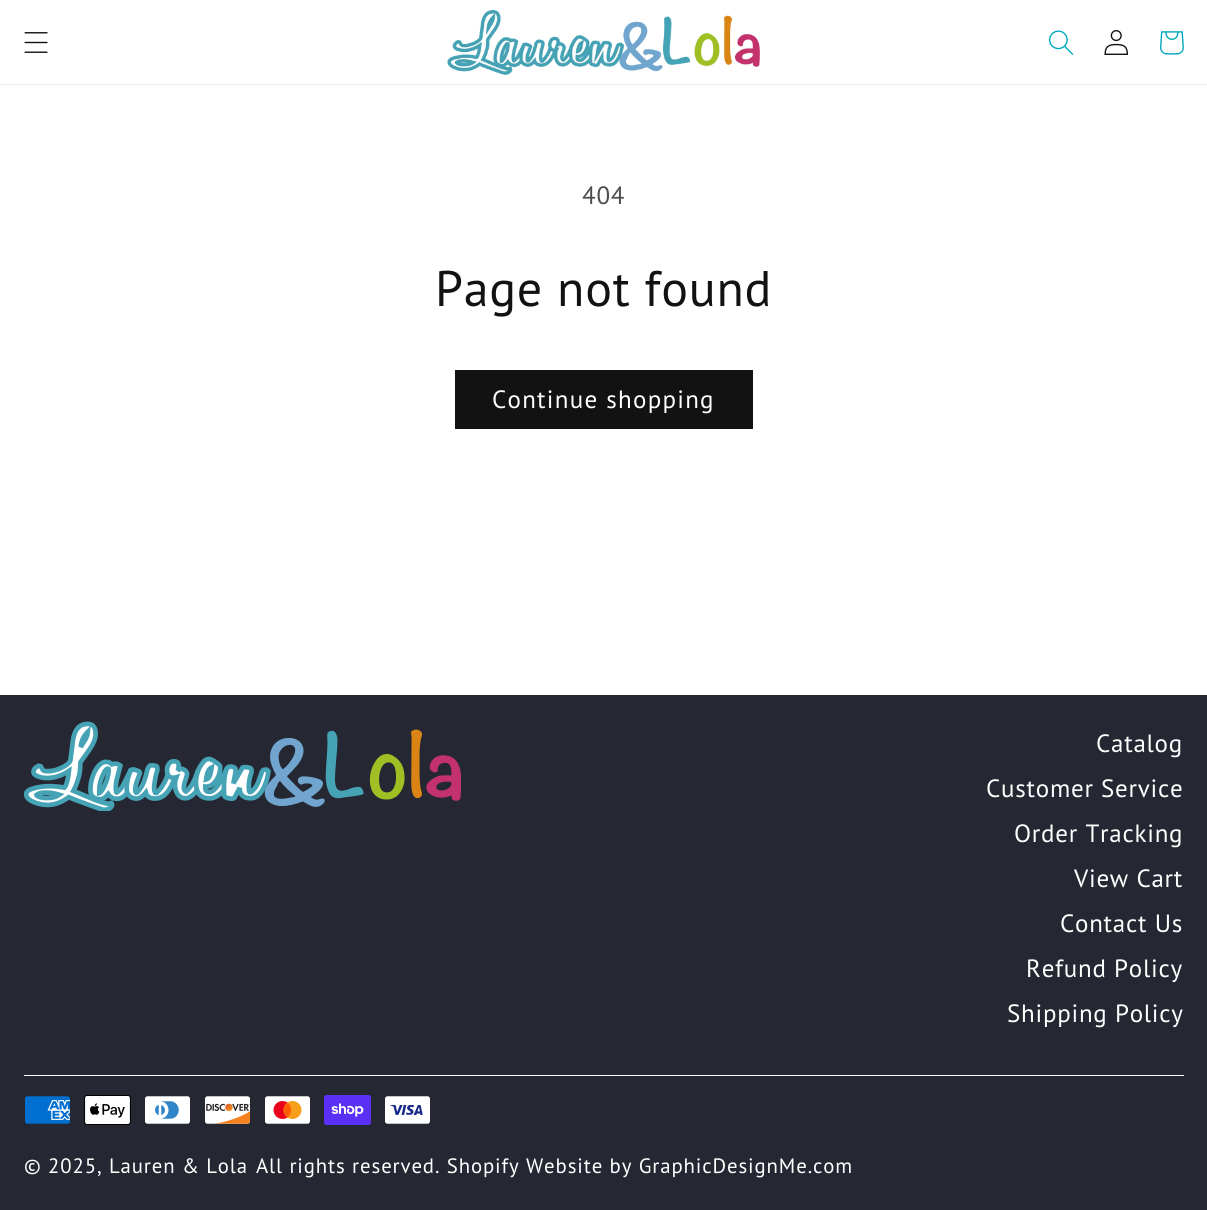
#include <cairo.h>
#include <math.h>
#include <stddef.h>


static void spaced_text(cairo_t *cr, double x, double y, const char *s, double letter, double word) {
    cairo_move_to(cr, x, y);
    while (*s) {
        char ch[5] = {0};
        int n = 0;
        do ch[n++] = *s++; while ((*s & 0xC0) == 0x80);
        cairo_show_text(cr, ch);
        cairo_rel_move_to(cr, letter + word * (*ch == ' '), 0);
    }
}

static void picture(cairo_t *cr, const char *path, double x, double y, double w, double h) {
    cairo_surface_t *image = cairo_image_surface_create_from_png(path);
    cairo_save(cr);
    cairo_set_source_surface(cr, image, x, y);
    cairo_rectangle(cr, x, y, w, h);
    cairo_fill(cr);
    cairo_restore(cr);
    cairo_surface_destroy(image);
}

int main(void) {
    cairo_surface_t *surface = cairo_image_surface_create(CAIRO_FORMAT_RGB24, 1207, 1210);
    cairo_t *cr = cairo_create(surface);
    cairo_font_options_t *options = cairo_font_options_create();
    cairo_font_options_set_hint_metrics(options, CAIRO_HINT_METRICS_OFF);
    cairo_font_options_set_hint_style(options, CAIRO_HINT_STYLE_NONE);
    cairo_set_font_options(cr, options);
    cairo_set_miter_limit(cr, 4);
    cairo_set_source_rgb(cr, 1, 1, 1);
    cairo_paint(cr);
    cairo_set_source_rgb(cr, 0.925, 0.925, 0.925);
    cairo_rectangle(cr, 0, 84, 1207, 1);
    cairo_fill(cr);
    picture(cr, "img1.png", 24, 32, 24, 21);
    picture(cr, "img2.png", 447, 10, 313, 65);
    picture(cr, "img3.png", 1049, 30, 25, 25);
    picture(cr, "img4.png", 1104, 30, 25, 25);
    picture(cr, "img5.png", 1160, 31, 24, 24);
    cairo_select_font_face(cr, "PT Sans", CAIRO_FONT_SLANT_NORMAL, CAIRO_FONT_WEIGHT_NORMAL);
    cairo_set_font_size(cr, 25);
    cairo_set_source_rgb(cr, 0.302, 0.302, 0.302);
    spaced_text(cr, 582, 204, "404", 0.75, 0);
    cairo_set_font_size(cr, 50);
    cairo_set_source_rgb(cr, 0.071, 0.071, 0.071);
    spaced_text(cr, 435, 306, "Page not found", 0.75, 0);
    cairo_rectangle(cr, 455, 370, 298, 59);
    cairo_fill(cr);
    cairo_set_font_size(cr, 25);
    cairo_set_source_rgb(cr, 1, 1, 1);
    spaced_text(cr, 492, 408, "Continue shopping", 1.25, 0);
    cairo_set_source_rgb(cr, 0.145, 0.157, 0.196);
    cairo_rectangle(cr, 0, 696, 1207, 514);
    cairo_fill(cr);
    cairo_set_source_rgb(cr, 0.137, 0.149, 0.184);
    cairo_rectangle(cr, 0, 695, 1207, 1);
    cairo_fill(cr);
    picture(cr, "img6.png", 24, 721, 437, 90);
    cairo_set_source_rgb(cr, 1, 1, 1);
    spaced_text(cr, 1096, 752, "Catalog", 0.75, 0);
    spaced_text(cr, 986, 797, "Customer Service", 0.75, 0);
    spaced_text(cr, 1014, 842, "Order Tracking", 0.75, 0);
    spaced_text(cr, 1074, 887, "View Cart", 0.75, 0);
    spaced_text(cr, 1060, 932, "Contact Us", 0.75, 0);
    spaced_text(cr, 1026, 977, "Refund Policy", 0.75, 0);
    spaced_text(cr, 1007, 1022, "Shipping Policy", 0.75, 0);
    cairo_set_source_rgb(cr, 0.137, 0.149, 0.184);
    cairo_rectangle(cr, 24, 1074, 1160, 1);
    cairo_fill(cr);
    cairo_set_source_rgb(cr, 1, 1, 1);
    cairo_rectangle(cr, 24, 1075, 1160, 1);
    cairo_fill(cr);
    picture(cr, "img7.png", 25, 1096, 45, 28);
    picture(cr, "img8.png", 84, 1095, 47, 30);
    picture(cr, "img9.png", 145, 1096, 45, 28);
    picture(cr, "img10.png", 205, 1096, 45, 28);
    picture(cr, "img11.png", 265, 1096, 45, 28);
    picture(cr, "img12.png", 324, 1095, 47, 30);
    picture(cr, "img13.png", 385, 1096, 45, 28);
    cairo_set_font_size(cr, 20.8);
    spaced_text(cr, 24, 1173, "© 2025, Lauren & Lola", 0.88, 0);
    spaced_text(cr, 256, 1173, "All rights reserved. Shopify Website by GraphicDesignMe.com", 0.88, 0);
    cairo_surface_write_to_png(surface, "page.png");
    cairo_font_options_destroy(options);
    cairo_destroy(cr);
    cairo_surface_destroy(surface);
    return 0;
}
